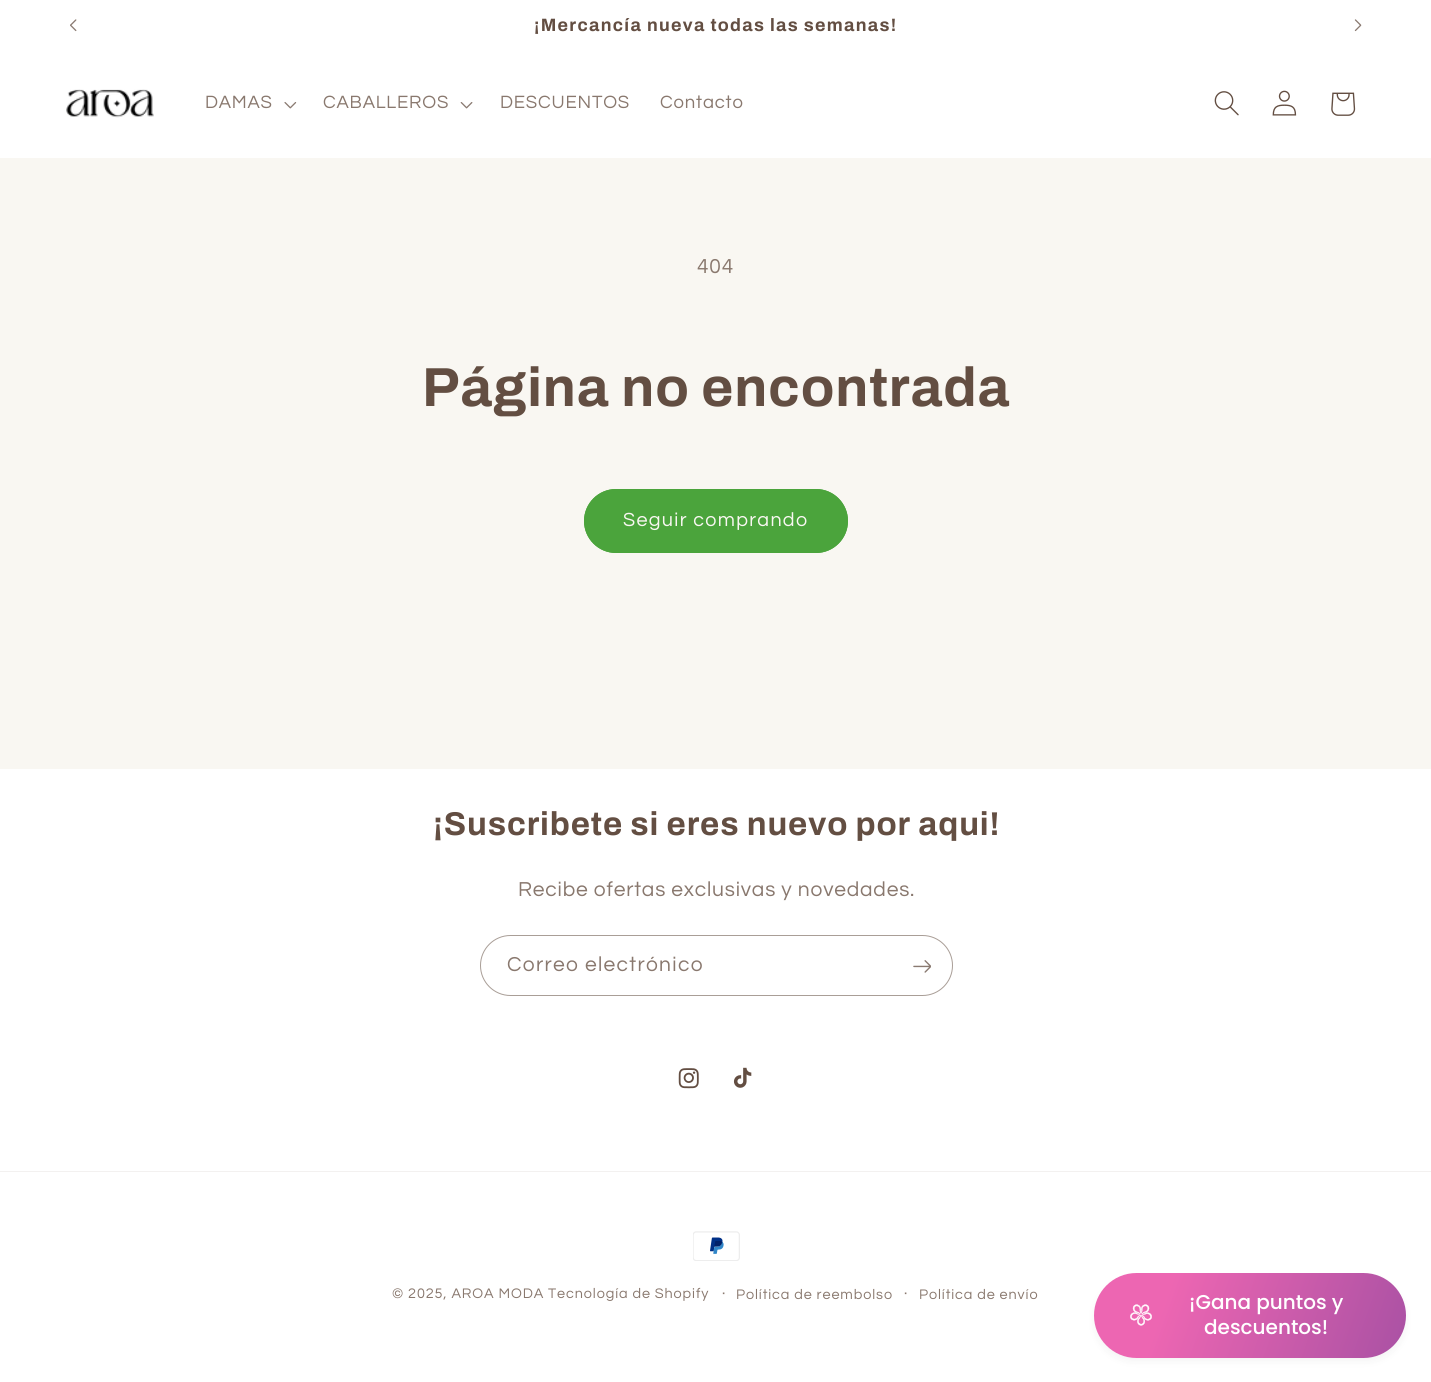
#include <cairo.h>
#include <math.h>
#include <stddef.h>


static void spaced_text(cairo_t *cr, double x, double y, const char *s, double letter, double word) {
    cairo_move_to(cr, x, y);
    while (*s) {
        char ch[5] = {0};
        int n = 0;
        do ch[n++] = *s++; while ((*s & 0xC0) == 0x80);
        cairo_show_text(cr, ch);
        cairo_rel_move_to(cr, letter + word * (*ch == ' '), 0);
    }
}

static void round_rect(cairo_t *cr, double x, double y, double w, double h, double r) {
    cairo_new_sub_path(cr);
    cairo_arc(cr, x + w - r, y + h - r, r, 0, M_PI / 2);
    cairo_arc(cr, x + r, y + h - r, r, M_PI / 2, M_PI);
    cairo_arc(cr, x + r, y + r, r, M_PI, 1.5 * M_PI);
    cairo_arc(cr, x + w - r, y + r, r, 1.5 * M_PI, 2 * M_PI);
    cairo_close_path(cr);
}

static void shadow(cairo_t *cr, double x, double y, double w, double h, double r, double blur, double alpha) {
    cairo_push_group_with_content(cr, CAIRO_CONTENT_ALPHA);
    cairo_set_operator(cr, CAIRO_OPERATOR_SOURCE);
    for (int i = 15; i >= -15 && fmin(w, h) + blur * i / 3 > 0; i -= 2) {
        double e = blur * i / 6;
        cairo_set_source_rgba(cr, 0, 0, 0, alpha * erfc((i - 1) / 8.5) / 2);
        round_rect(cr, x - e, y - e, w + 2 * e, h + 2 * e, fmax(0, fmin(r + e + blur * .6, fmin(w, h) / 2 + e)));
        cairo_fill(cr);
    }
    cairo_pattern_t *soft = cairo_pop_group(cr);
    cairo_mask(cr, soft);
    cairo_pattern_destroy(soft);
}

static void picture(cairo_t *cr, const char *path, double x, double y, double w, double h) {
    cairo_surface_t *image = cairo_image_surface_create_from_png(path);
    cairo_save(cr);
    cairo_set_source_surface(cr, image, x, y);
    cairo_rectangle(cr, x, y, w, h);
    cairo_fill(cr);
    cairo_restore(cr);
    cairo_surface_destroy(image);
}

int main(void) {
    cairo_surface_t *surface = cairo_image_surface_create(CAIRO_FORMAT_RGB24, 1431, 1382);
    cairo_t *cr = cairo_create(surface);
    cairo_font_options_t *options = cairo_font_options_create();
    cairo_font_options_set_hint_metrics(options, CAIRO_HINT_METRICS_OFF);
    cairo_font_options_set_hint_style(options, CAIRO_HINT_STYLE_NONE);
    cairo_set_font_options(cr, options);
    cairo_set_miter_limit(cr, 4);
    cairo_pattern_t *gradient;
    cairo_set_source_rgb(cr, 0.976, 0.965, 0.949);
    cairo_paint(cr);
    cairo_set_source_rgb(cr, 1, 1, 1);
    cairo_rectangle(cr, 0, 0, 1431, 158);
    cairo_fill(cr);
    picture(cr, "img1.png", 70, 19, 7, 13);
    cairo_select_font_face(cr, "Archivo", CAIRO_FONT_SLANT_NORMAL, CAIRO_FONT_WEIGHT_BOLD);
    cairo_set_font_size(cr, 17.9);
    cairo_set_source_rgb(cr, 0.388, 0.306, 0.259);
    spaced_text(cr, 534, 31, "¡Mercancía nueva todas las semanas!", 1.3, 0);
    picture(cr, "img2.png", 1354, 19, 8, 13);
    picture(cr, "img3.png", 66, 89, 88, 29);
    cairo_select_font_face(cr, "Questrial", CAIRO_FONT_SLANT_NORMAL, CAIRO_FONT_WEIGHT_NORMAL);
    cairo_set_font_size(cr, 18.5);
    cairo_set_source_rgb(cr, 0.537, 0.471, 0.431);
    spaced_text(cr, 205, 108, "DAMAS", 0.8, 0);
    picture(cr, "img4.png", 284, 102, 13, 7);
    spaced_text(cr, 323, 108, "CABALLEROS", 0.8, 0);
    picture(cr, "img5.png", 460, 102, 13, 7);
    spaced_text(cr, 500, 108, "DESCUENTOS", 0.8, 0);
    spaced_text(cr, 660, 108, "Contacto", 0.8, 0);
    picture(cr, "img6.png", 1214, 91, 25, 25);
    picture(cr, "img7.png", 1272, 90, 25, 26);
    picture(cr, "img8.png", 1331, 92, 25, 24);
    cairo_set_font_size(cr, 21);
    spaced_text(cr, 697, 273, "404", 0.8, 0);
    cairo_select_font_face(cr, "Archivo", CAIRO_FONT_SLANT_NORMAL, CAIRO_FONT_WEIGHT_BOLD);
    cairo_set_font_size(cr, 55);
    cairo_set_source_rgb(cr, 0.388, 0.306, 0.259);
    spaced_text(cr, 422, 406, "Página no encontrada", 0.85, 0);
    cairo_set_source_rgb(cr, 0.294, 0.643, 0.235);
    round_rect(cr, 584, 489, 264, 64, 32);
    cairo_fill(cr);
    round_rect(cr, 585.5, 490.5, 261, 61, 30.5);
    cairo_set_line_width(cr, 3);
    cairo_stroke(cr);
    cairo_select_font_face(cr, "Questrial", CAIRO_FONT_SLANT_NORMAL, CAIRO_FONT_WEIGHT_NORMAL);
    cairo_set_font_size(cr, 19.75);
    cairo_set_source_rgb(cr, 0.976, 0.965, 0.949);
    spaced_text(cr, 623, 526, "Seguir comprando", 1.3, 0);
    cairo_set_source_rgb(cr, 1, 1, 1);
    cairo_rectangle(cr, 0, 769, 1431, 613);
    cairo_fill(cr);
    cairo_select_font_face(cr, "Archivo", CAIRO_FONT_SLANT_NORMAL, CAIRO_FONT_WEIGHT_BOLD);
    cairo_set_font_size(cr, 33);
    cairo_set_source_rgb(cr, 0.388, 0.306, 0.259);
    spaced_text(cr, 433, 835, "¡Suscribete si eres nuevo por aqui!", 0.85, 0);
    cairo_select_font_face(cr, "Questrial", CAIRO_FONT_SLANT_NORMAL, CAIRO_FONT_WEIGHT_NORMAL);
    cairo_set_font_size(cr, 21);
    cairo_set_source_rgb(cr, 0.537, 0.471, 0.431);
    spaced_text(cr, 518, 896, "Recibe ofertas exclusivas y novedades.", 0.8, 0);
    round_rect(cr, 480.5, 935.5, 472, 60, 30);
    cairo_set_source_rgb(cr, 0.663, 0.62, 0.592);
    cairo_set_line_width(cr, 1);
    cairo_stroke(cr);
    cairo_set_source_rgb(cr, 0.537, 0.471, 0.431);
    spaced_text(cr, 507, 971, "Correo electrónico", 1.3, 0);
    picture(cr, "img9.png", 913, 960, 18, 13);
    picture(cr, "img10.png", 678, 1068, 21, 21);
    picture(cr, "img11.png", 733, 1067, 19, 21);
    cairo_set_source_rgb(cr, 0.953, 0.945, 0.941);
    cairo_rectangle(cr, 0, 1171, 1431, 1);
    cairo_fill(cr);
    picture(cr, "img12.png", 693, 1231, 47, 30);
    cairo_set_font_size(cr, 14.4);
    cairo_set_source_rgb(cr, 0.537, 0.471, 0.431);
    spaced_text(cr, 392, 1298, "© 2025, AROA MODA Tecnología de Shopify", 0.9, 0);
    cairo_set_font_size(cr, 16);
    spaced_text(cr, 722, 1298, "·", 0.9, 0);
    cairo_set_font_size(cr, 14.4);
    spaced_text(cr, 736, 1299, "Política de reembolso", 0.9, 0);
    cairo_set_font_size(cr, 16);
    spaced_text(cr, 904, 1298, "·", 0.9, 0);
    cairo_set_font_size(cr, 14.4);
    spaced_text(cr, 919, 1299, "Política de envío", 0.9, 0);
    cairo_set_source_rgb(cr, 0.267, 0.267, 0.267);
    shadow(cr, 1096, 1280, 308, 80, 40, 5, 0.08);
    gradient = cairo_pattern_create_linear(1098, 1261, 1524, 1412);
    cairo_pattern_add_color_stop_rgba(gradient, 0.17, 0.929, 0.4, 0.698, 1);
    cairo_pattern_add_color_stop_rgba(gradient, 1, 0.525, 0.275, 0.612, 1);
    cairo_set_source(cr, gradient);
    cairo_pattern_destroy(gradient);
    round_rect(cr, 1094, 1273, 312, 85, 42.5);
    cairo_fill(cr);
    picture(cr, "img13.png", 1130, 1304, 22, 22);
    cairo_select_font_face(cr, "Poppins Medium", CAIRO_FONT_SLANT_NORMAL, CAIRO_FONT_WEIGHT_NORMAL);
    cairo_set_font_size(cr, 20);
    cairo_set_source_rgb(cr, 1, 1, 1);
    cairo_move_to(cr, 1189, 1309);
    cairo_show_text(cr, "¡Gana puntos y");
    cairo_move_to(cr, 1204, 1334);
    cairo_show_text(cr, "descuentos!");
    cairo_surface_write_to_png(surface, "page.png");
    cairo_font_options_destroy(options);
    cairo_destroy(cr);
    cairo_surface_destroy(surface);
    return 0;
}
